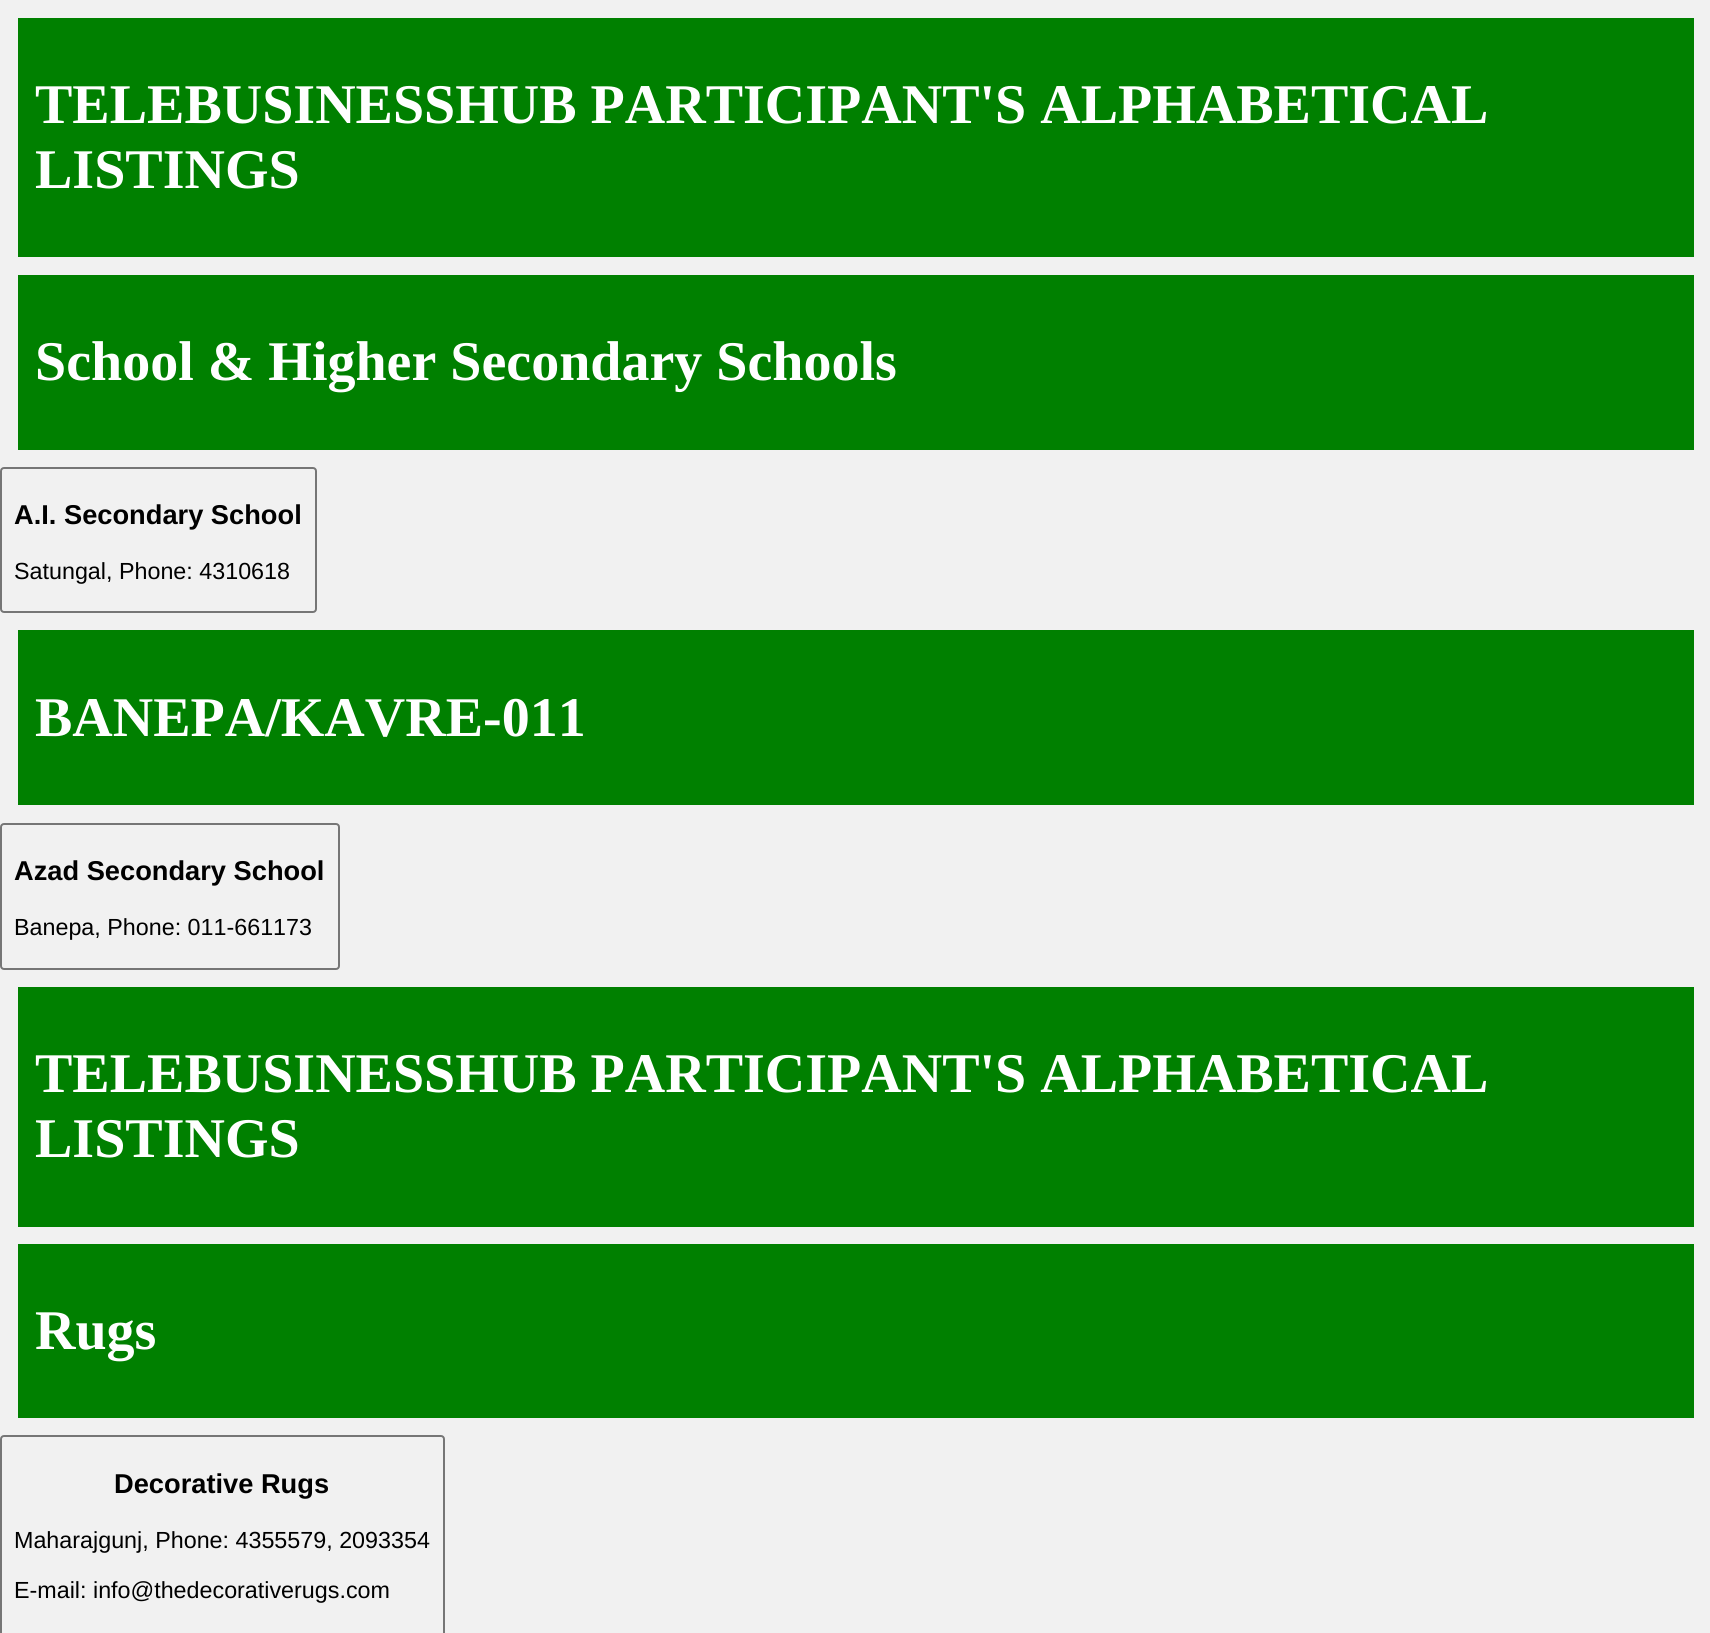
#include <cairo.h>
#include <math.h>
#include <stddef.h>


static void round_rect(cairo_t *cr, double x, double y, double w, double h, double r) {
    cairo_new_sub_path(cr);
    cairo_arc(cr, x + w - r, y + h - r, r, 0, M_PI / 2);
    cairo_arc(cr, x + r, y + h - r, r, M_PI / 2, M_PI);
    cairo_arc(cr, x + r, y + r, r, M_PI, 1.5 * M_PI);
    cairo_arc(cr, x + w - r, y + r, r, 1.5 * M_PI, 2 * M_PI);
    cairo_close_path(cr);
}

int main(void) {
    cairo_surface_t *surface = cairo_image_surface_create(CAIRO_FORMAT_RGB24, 1710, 1633);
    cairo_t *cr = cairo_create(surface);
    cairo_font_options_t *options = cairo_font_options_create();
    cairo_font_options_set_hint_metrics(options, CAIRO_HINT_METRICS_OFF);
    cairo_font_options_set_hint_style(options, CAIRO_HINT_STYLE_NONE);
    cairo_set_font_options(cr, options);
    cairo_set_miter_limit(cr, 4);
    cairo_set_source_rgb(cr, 0.945, 0.945, 0.945);
    cairo_paint(cr);
    cairo_set_source_rgb(cr, 0, 0.502, 0);
    cairo_rectangle(cr, 18, 18, 1676, 239);
    cairo_fill(cr);
    cairo_select_font_face(cr, "Liberation Serif", CAIRO_FONT_SLANT_NORMAL, CAIRO_FONT_WEIGHT_BOLD);
    cairo_set_font_size(cr, 56);
    cairo_set_source_rgb(cr, 1, 1, 1);
    cairo_move_to(cr, 35, 123);
    cairo_show_text(cr, "TELEBUSINESSHUB PARTICIPANT'S ALPHABETICAL");
    cairo_move_to(cr, 35, 188);
    cairo_show_text(cr, "LISTINGS");
    cairo_set_source_rgb(cr, 0, 0.502, 0);
    cairo_rectangle(cr, 18, 275, 1676, 175);
    cairo_fill(cr);
    cairo_set_source_rgb(cr, 1, 1, 1);
    cairo_move_to(cr, 35, 380);
    cairo_show_text(cr, "School & Higher Secondary Schools");
    round_rect(cr, 1, 468, 315, 144, 3);
    cairo_set_source_rgb(cr, 0.463, 0.463, 0.463);
    cairo_stroke(cr);
    cairo_select_font_face(cr, "Liberation Sans", CAIRO_FONT_SLANT_NORMAL, CAIRO_FONT_WEIGHT_BOLD);
    cairo_set_font_size(cr, 27.25);
    cairo_set_source_rgb(cr, 0, 0, 0);
    cairo_move_to(cr, 14, 524);
    cairo_show_text(cr, "A.I. Secondary School");
    cairo_select_font_face(cr, "Liberation Sans", CAIRO_FONT_SLANT_NORMAL, CAIRO_FONT_WEIGHT_NORMAL);
    cairo_set_font_size(cr, 23.3);
    cairo_move_to(cr, 14, 579);
    cairo_show_text(cr, "Satungal, Phone: 4310618");
    cairo_set_source_rgb(cr, 0, 0.502, 0);
    cairo_rectangle(cr, 18, 630, 1676, 175);
    cairo_fill(cr);
    cairo_select_font_face(cr, "Liberation Serif", CAIRO_FONT_SLANT_NORMAL, CAIRO_FONT_WEIGHT_BOLD);
    cairo_set_font_size(cr, 56);
    cairo_set_source_rgb(cr, 1, 1, 1);
    cairo_move_to(cr, 35, 736);
    cairo_show_text(cr, "BANEPA/KAVRE-011");
    round_rect(cr, 1, 824, 338, 145, 3);
    cairo_set_source_rgb(cr, 0.463, 0.463, 0.463);
    cairo_stroke(cr);
    cairo_select_font_face(cr, "Liberation Sans", CAIRO_FONT_SLANT_NORMAL, CAIRO_FONT_WEIGHT_BOLD);
    cairo_set_font_size(cr, 27.25);
    cairo_set_source_rgb(cr, 0, 0, 0);
    cairo_move_to(cr, 14, 880);
    cairo_show_text(cr, "Azad Secondary School");
    cairo_select_font_face(cr, "Liberation Sans", CAIRO_FONT_SLANT_NORMAL, CAIRO_FONT_WEIGHT_NORMAL);
    cairo_set_font_size(cr, 23.3);
    cairo_move_to(cr, 14, 935);
    cairo_show_text(cr, "Banepa, Phone: 011-661173");
    cairo_set_source_rgb(cr, 0, 0.502, 0);
    cairo_rectangle(cr, 18, 987, 1676, 240);
    cairo_fill(cr);
    cairo_select_font_face(cr, "Liberation Serif", CAIRO_FONT_SLANT_NORMAL, CAIRO_FONT_WEIGHT_BOLD);
    cairo_set_font_size(cr, 56);
    cairo_set_source_rgb(cr, 1, 1, 1);
    cairo_move_to(cr, 35, 1092);
    cairo_show_text(cr, "TELEBUSINESSHUB PARTICIPANT'S ALPHABETICAL");
    cairo_move_to(cr, 35, 1157);
    cairo_show_text(cr, "LISTINGS");
    cairo_set_source_rgb(cr, 0, 0.502, 0);
    cairo_rectangle(cr, 18, 1244, 1676, 174);
    cairo_fill(cr);
    cairo_set_source_rgb(cr, 1, 1, 1);
    cairo_move_to(cr, 35, 1349);
    cairo_show_text(cr, "Rugs");
    round_rect(cr, 1, 1436, 443, 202, 3);
    cairo_set_source_rgb(cr, 0.463, 0.463, 0.463);
    cairo_stroke(cr);
    cairo_select_font_face(cr, "Liberation Sans", CAIRO_FONT_SLANT_NORMAL, CAIRO_FONT_WEIGHT_BOLD);
    cairo_set_font_size(cr, 27.25);
    cairo_set_source_rgb(cr, 0, 0, 0);
    cairo_move_to(cr, 114, 1493);
    cairo_show_text(cr, "Decorative Rugs");
    cairo_select_font_face(cr, "Liberation Sans", CAIRO_FONT_SLANT_NORMAL, CAIRO_FONT_WEIGHT_NORMAL);
    cairo_set_font_size(cr, 23.3);
    cairo_move_to(cr, 14, 1548);
    cairo_show_text(cr, "Maharajgunj, Phone: 4355579, 2093354");
    cairo_move_to(cr, 14, 1598);
    cairo_show_text(cr, "E-mail: info@thedecorativerugs.com");
    cairo_surface_write_to_png(surface, "page.png");
    cairo_font_options_destroy(options);
    cairo_destroy(cr);
    cairo_surface_destroy(surface);
    return 0;
}
